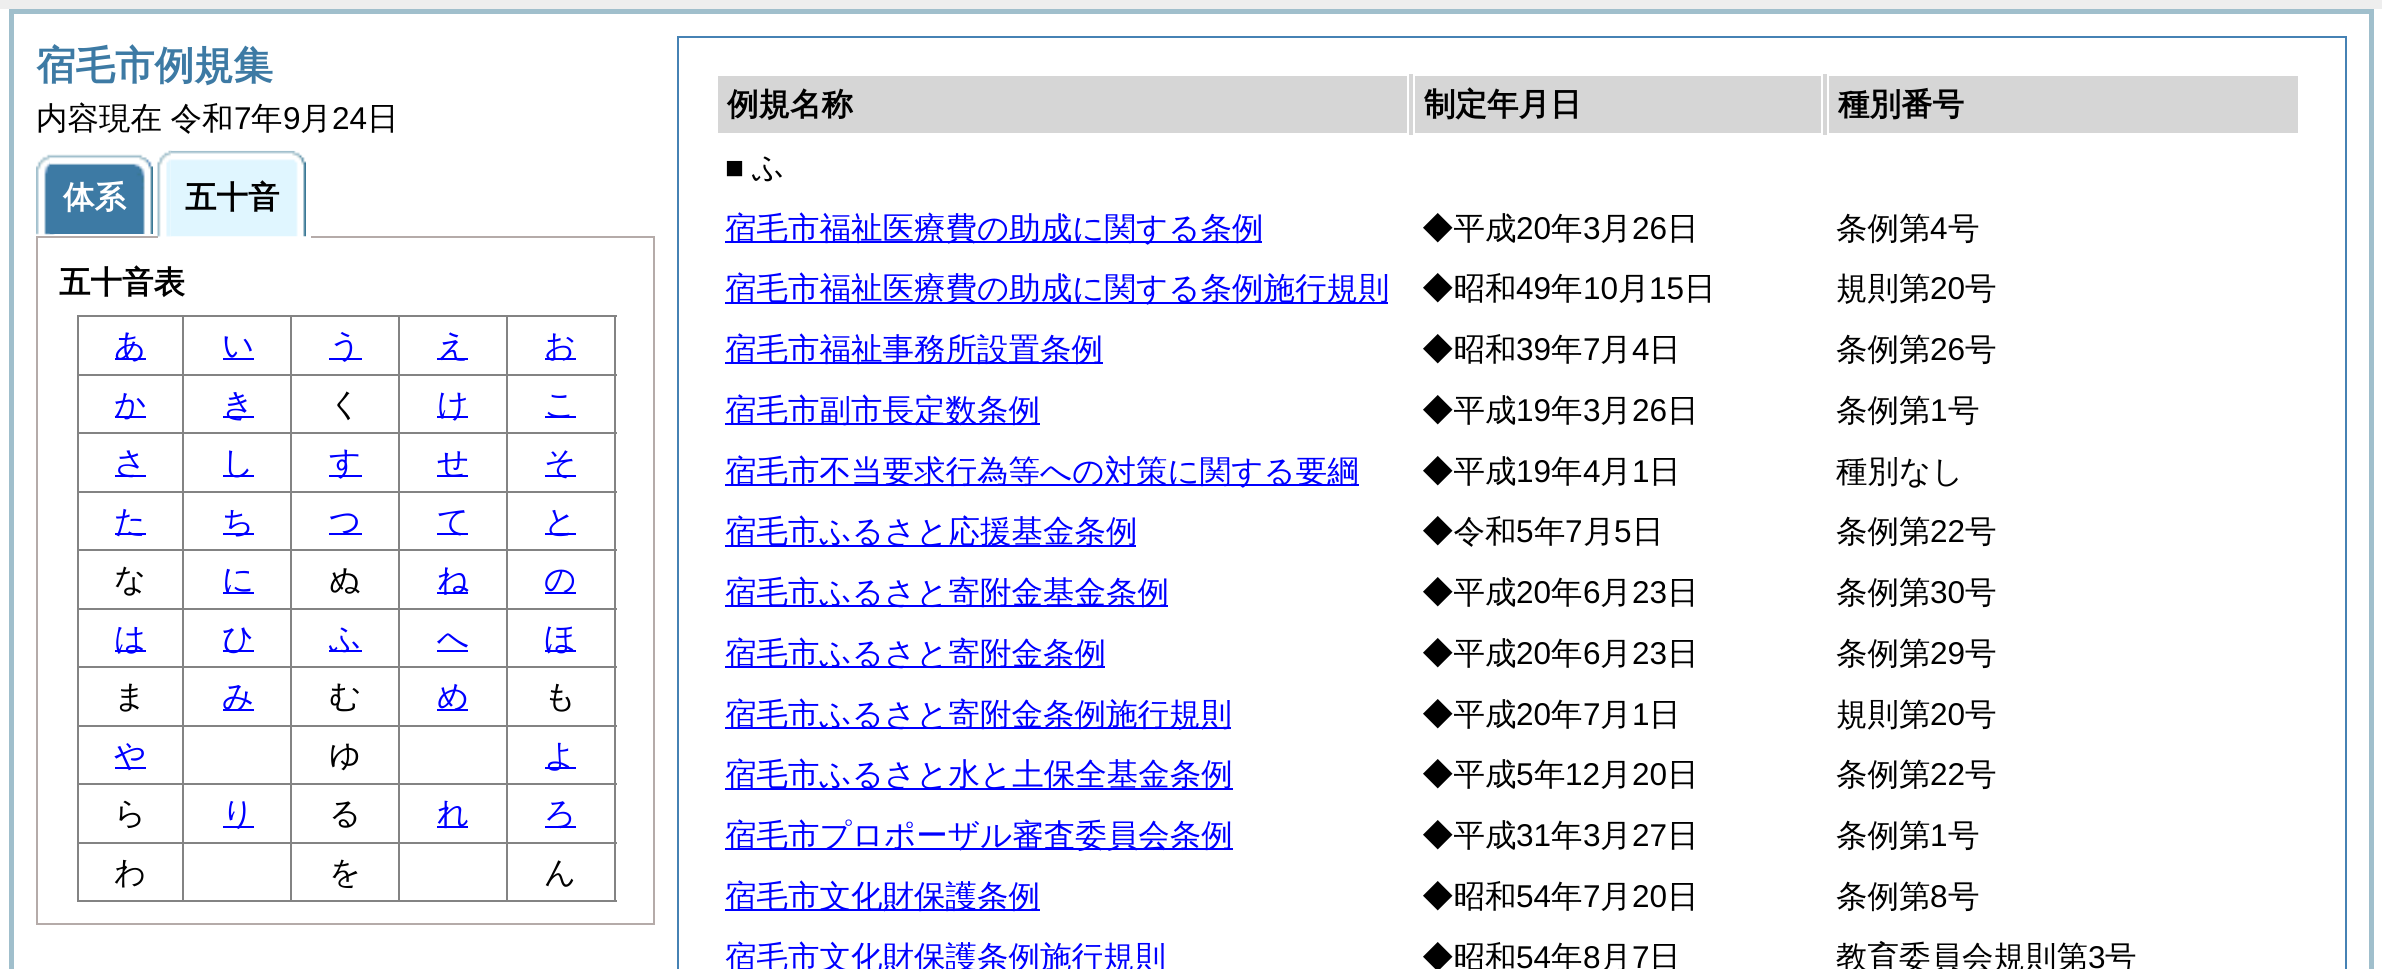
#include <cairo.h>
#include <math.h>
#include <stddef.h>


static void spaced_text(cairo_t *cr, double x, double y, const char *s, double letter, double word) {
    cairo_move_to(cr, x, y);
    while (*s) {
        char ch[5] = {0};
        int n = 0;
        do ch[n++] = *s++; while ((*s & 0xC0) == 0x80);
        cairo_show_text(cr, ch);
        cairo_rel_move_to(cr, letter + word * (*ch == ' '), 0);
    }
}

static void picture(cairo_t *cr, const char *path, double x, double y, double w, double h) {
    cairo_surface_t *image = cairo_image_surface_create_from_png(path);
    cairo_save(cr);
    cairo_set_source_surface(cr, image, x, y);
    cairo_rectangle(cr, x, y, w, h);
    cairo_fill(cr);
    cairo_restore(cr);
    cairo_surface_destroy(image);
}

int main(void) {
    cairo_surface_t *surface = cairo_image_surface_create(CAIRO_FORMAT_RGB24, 2382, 969);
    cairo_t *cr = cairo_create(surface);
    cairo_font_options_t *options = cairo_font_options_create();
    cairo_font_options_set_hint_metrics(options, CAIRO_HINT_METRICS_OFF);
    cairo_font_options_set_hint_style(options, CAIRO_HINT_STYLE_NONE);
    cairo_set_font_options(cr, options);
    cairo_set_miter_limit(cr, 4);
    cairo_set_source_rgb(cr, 1, 1, 1);
    cairo_paint(cr);
    picture(cr, "img1.png", 0, 0, 2382, 9);
    cairo_rectangle(cr, 11.5, 11.5, 2360, 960);
    cairo_set_source_rgb(cr, 0.627, 0.749, 0.8);
    cairo_set_line_width(cr, 5);
    cairo_stroke(cr);
    cairo_select_font_face(cr, "WenQuanYi Zen Hei", CAIRO_FONT_SLANT_NORMAL, CAIRO_FONT_WEIGHT_BOLD);
    cairo_set_font_size(cr, 39.5);
    cairo_set_source_rgb(cr, 0.239, 0.478, 0.643);
    cairo_move_to(cr, 36, 79);
    cairo_show_text(cr, "宿毛市例規集");
    cairo_select_font_face(cr, "WenQuanYi Zen Hei Medium", CAIRO_FONT_SLANT_NORMAL, CAIRO_FONT_WEIGHT_NORMAL);
    cairo_set_font_size(cr, 31.5);
    cairo_set_source_rgb(cr, 0, 0, 0);
    spaced_text(cr, 36, 129, "内容現在 令和", 0, -1);
    cairo_select_font_face(cr, "Liberation Sans", CAIRO_FONT_SLANT_NORMAL, CAIRO_FONT_WEIGHT_NORMAL);
    cairo_move_to(cr, 234, 129);
    cairo_show_text(cr, "7");
    cairo_select_font_face(cr, "WenQuanYi Zen Hei Medium", CAIRO_FONT_SLANT_NORMAL, CAIRO_FONT_WEIGHT_NORMAL);
    cairo_move_to(cr, 251, 129);
    cairo_show_text(cr, "年");
    cairo_select_font_face(cr, "Liberation Sans", CAIRO_FONT_SLANT_NORMAL, CAIRO_FONT_WEIGHT_NORMAL);
    cairo_move_to(cr, 283, 129);
    cairo_show_text(cr, "9");
    cairo_select_font_face(cr, "WenQuanYi Zen Hei Medium", CAIRO_FONT_SLANT_NORMAL, CAIRO_FONT_WEIGHT_NORMAL);
    cairo_move_to(cr, 300, 129);
    cairo_show_text(cr, "月");
    cairo_select_font_face(cr, "Liberation Sans", CAIRO_FONT_SLANT_NORMAL, CAIRO_FONT_WEIGHT_NORMAL);
    cairo_move_to(cr, 332, 129);
    cairo_show_text(cr, "24");
    cairo_select_font_face(cr, "WenQuanYi Zen Hei Medium", CAIRO_FONT_SLANT_NORMAL, CAIRO_FONT_WEIGHT_NORMAL);
    cairo_move_to(cr, 367, 129);
    cairo_show_text(cr, "日");
    picture(cr, "img2.png", 36, 151, 117, 84);
    picture(cr, "img3.png", 49, 151, 104, 83);
    cairo_select_font_face(cr, "WenQuanYi Zen Hei", CAIRO_FONT_SLANT_NORMAL, CAIRO_FONT_WEIGHT_BOLD);
    cairo_set_source_rgb(cr, 1, 1, 1);
    cairo_move_to(cr, 63, 208);
    cairo_show_text(cr, "体系");
    cairo_rectangle(cr, 37, 237, 617, 687);
    cairo_set_source_rgb(cr, 0.71, 0.671, 0.663);
    cairo_set_line_width(cr, 2);
    cairo_stroke(cr);
    cairo_set_source_rgb(cr, 1, 1, 1);
    cairo_rectangle(cr, 158, 236, 153, 2);
    cairo_fill(cr);
    picture(cr, "img4.png", 157, 150, 15, 87);
    picture(cr, "img5.png", 171, 150, 135, 87);
    cairo_set_source_rgb(cr, 0, 0, 0);
    cairo_move_to(cr, 185, 208);
    cairo_show_text(cr, "五十音");
    cairo_move_to(cr, 59, 293);
    cairo_show_text(cr, "五十音表");
    cairo_set_source_rgb(cr, 0.514, 0.514, 0.514);
    cairo_rectangle(cr, 506, 315, 111, 2);
    cairo_fill(cr);
    cairo_rectangle(cr, 506, 374, 111, 2);
    cairo_fill(cr);
    cairo_rectangle(cr, 506, 432, 111, 2);
    cairo_fill(cr);
    cairo_rectangle(cr, 506, 491, 111, 2);
    cairo_fill(cr);
    cairo_rectangle(cr, 506, 549, 111, 2);
    cairo_fill(cr);
    cairo_rectangle(cr, 506, 608, 111, 2);
    cairo_fill(cr);
    cairo_rectangle(cr, 506, 666, 111, 2);
    cairo_fill(cr);
    cairo_rectangle(cr, 506, 725, 111, 2);
    cairo_fill(cr);
    cairo_rectangle(cr, 506, 783, 111, 2);
    cairo_fill(cr);
    cairo_rectangle(cr, 506, 842, 111, 2);
    cairo_fill(cr);
    cairo_rectangle(cr, 614, 842, 2, 60);
    cairo_fill(cr);
    cairo_rectangle(cr, 506, 900, 111, 2);
    cairo_fill(cr);
    cairo_rectangle(cr, 506, 842, 2, 60);
    cairo_fill(cr);
    cairo_rectangle(cr, 398, 842, 111, 2);
    cairo_fill(cr);
    cairo_rectangle(cr, 506, 783, 2, 61);
    cairo_fill(cr);
    cairo_rectangle(cr, 398, 783, 111, 2);
    cairo_fill(cr);
    cairo_rectangle(cr, 506, 725, 2, 60);
    cairo_fill(cr);
    cairo_rectangle(cr, 398, 725, 111, 2);
    cairo_fill(cr);
    cairo_rectangle(cr, 506, 666, 2, 61);
    cairo_fill(cr);
    cairo_rectangle(cr, 398, 666, 111, 2);
    cairo_fill(cr);
    cairo_rectangle(cr, 506, 608, 2, 60);
    cairo_fill(cr);
    cairo_rectangle(cr, 398, 608, 111, 2);
    cairo_fill(cr);
    cairo_rectangle(cr, 506, 549, 2, 61);
    cairo_fill(cr);
    cairo_rectangle(cr, 398, 549, 111, 2);
    cairo_fill(cr);
    cairo_rectangle(cr, 506, 491, 2, 60);
    cairo_fill(cr);
    cairo_rectangle(cr, 398, 491, 111, 2);
    cairo_fill(cr);
    cairo_rectangle(cr, 506, 432, 2, 61);
    cairo_fill(cr);
    cairo_rectangle(cr, 398, 432, 111, 2);
    cairo_fill(cr);
    cairo_rectangle(cr, 506, 374, 2, 60);
    cairo_fill(cr);
    cairo_rectangle(cr, 398, 374, 111, 2);
    cairo_fill(cr);
    cairo_rectangle(cr, 506, 315, 2, 61);
    cairo_fill(cr);
    cairo_rectangle(cr, 398, 315, 111, 2);
    cairo_fill(cr);
    cairo_rectangle(cr, 398, 900, 111, 2);
    cairo_fill(cr);
    cairo_rectangle(cr, 398, 842, 2, 60);
    cairo_fill(cr);
    cairo_rectangle(cr, 290, 842, 111, 2);
    cairo_fill(cr);
    cairo_rectangle(cr, 398, 783, 2, 61);
    cairo_fill(cr);
    cairo_rectangle(cr, 290, 783, 111, 2);
    cairo_fill(cr);
    cairo_rectangle(cr, 398, 725, 2, 60);
    cairo_fill(cr);
    cairo_rectangle(cr, 290, 725, 111, 2);
    cairo_fill(cr);
    cairo_rectangle(cr, 398, 666, 2, 61);
    cairo_fill(cr);
    cairo_rectangle(cr, 290, 666, 111, 2);
    cairo_fill(cr);
    cairo_rectangle(cr, 398, 608, 2, 60);
    cairo_fill(cr);
    cairo_rectangle(cr, 290, 608, 111, 2);
    cairo_fill(cr);
    cairo_rectangle(cr, 398, 549, 2, 61);
    cairo_fill(cr);
    cairo_rectangle(cr, 290, 549, 111, 2);
    cairo_fill(cr);
    cairo_rectangle(cr, 398, 491, 2, 60);
    cairo_fill(cr);
    cairo_rectangle(cr, 290, 491, 111, 2);
    cairo_fill(cr);
    cairo_rectangle(cr, 398, 432, 2, 61);
    cairo_fill(cr);
    cairo_rectangle(cr, 290, 432, 111, 2);
    cairo_fill(cr);
    cairo_rectangle(cr, 398, 374, 2, 60);
    cairo_fill(cr);
    cairo_rectangle(cr, 290, 374, 111, 2);
    cairo_fill(cr);
    cairo_rectangle(cr, 398, 315, 2, 61);
    cairo_fill(cr);
    cairo_rectangle(cr, 290, 315, 111, 2);
    cairo_fill(cr);
    cairo_rectangle(cr, 290, 900, 111, 2);
    cairo_fill(cr);
    cairo_rectangle(cr, 290, 842, 2, 60);
    cairo_fill(cr);
    cairo_rectangle(cr, 182, 842, 111, 2);
    cairo_fill(cr);
    cairo_rectangle(cr, 290, 783, 2, 61);
    cairo_fill(cr);
    cairo_rectangle(cr, 182, 783, 111, 2);
    cairo_fill(cr);
    cairo_rectangle(cr, 290, 725, 2, 60);
    cairo_fill(cr);
    cairo_rectangle(cr, 182, 725, 111, 2);
    cairo_fill(cr);
    cairo_rectangle(cr, 290, 666, 2, 61);
    cairo_fill(cr);
    cairo_rectangle(cr, 182, 666, 111, 2);
    cairo_fill(cr);
    cairo_rectangle(cr, 290, 608, 2, 60);
    cairo_fill(cr);
    cairo_rectangle(cr, 182, 608, 111, 2);
    cairo_fill(cr);
    cairo_rectangle(cr, 290, 549, 2, 61);
    cairo_fill(cr);
    cairo_rectangle(cr, 182, 549, 111, 2);
    cairo_fill(cr);
    cairo_rectangle(cr, 290, 491, 2, 60);
    cairo_fill(cr);
    cairo_rectangle(cr, 182, 491, 111, 2);
    cairo_fill(cr);
    cairo_rectangle(cr, 290, 432, 2, 61);
    cairo_fill(cr);
    cairo_rectangle(cr, 182, 432, 111, 2);
    cairo_fill(cr);
    cairo_rectangle(cr, 290, 374, 2, 60);
    cairo_fill(cr);
    cairo_rectangle(cr, 182, 374, 111, 2);
    cairo_fill(cr);
    cairo_rectangle(cr, 290, 315, 2, 61);
    cairo_fill(cr);
    cairo_rectangle(cr, 182, 315, 111, 2);
    cairo_fill(cr);
    cairo_rectangle(cr, 182, 900, 111, 2);
    cairo_fill(cr);
    cairo_rectangle(cr, 182, 842, 2, 60);
    cairo_fill(cr);
    cairo_rectangle(cr, 77, 842, 108, 2);
    cairo_fill(cr);
    cairo_rectangle(cr, 182, 783, 2, 61);
    cairo_fill(cr);
    cairo_rectangle(cr, 77, 783, 108, 2);
    cairo_fill(cr);
    cairo_rectangle(cr, 182, 725, 2, 60);
    cairo_fill(cr);
    cairo_rectangle(cr, 77, 725, 108, 2);
    cairo_fill(cr);
    cairo_rectangle(cr, 182, 666, 2, 61);
    cairo_fill(cr);
    cairo_rectangle(cr, 77, 666, 108, 2);
    cairo_fill(cr);
    cairo_rectangle(cr, 182, 608, 2, 60);
    cairo_fill(cr);
    cairo_rectangle(cr, 77, 608, 108, 2);
    cairo_fill(cr);
    cairo_rectangle(cr, 182, 549, 2, 61);
    cairo_fill(cr);
    cairo_rectangle(cr, 77, 549, 108, 2);
    cairo_fill(cr);
    cairo_rectangle(cr, 182, 491, 2, 60);
    cairo_fill(cr);
    cairo_rectangle(cr, 77, 491, 108, 2);
    cairo_fill(cr);
    cairo_rectangle(cr, 182, 432, 2, 61);
    cairo_fill(cr);
    cairo_rectangle(cr, 77, 432, 108, 2);
    cairo_fill(cr);
    cairo_rectangle(cr, 182, 374, 2, 60);
    cairo_fill(cr);
    cairo_rectangle(cr, 77, 374, 108, 2);
    cairo_fill(cr);
    cairo_rectangle(cr, 182, 315, 2, 61);
    cairo_fill(cr);
    cairo_rectangle(cr, 77, 315, 108, 2);
    cairo_fill(cr);
    cairo_rectangle(cr, 77, 900, 108, 2);
    cairo_fill(cr);
    cairo_rectangle(cr, 77, 842, 2, 60);
    cairo_fill(cr);
    cairo_rectangle(cr, 77, 783, 2, 61);
    cairo_fill(cr);
    cairo_rectangle(cr, 77, 725, 2, 60);
    cairo_fill(cr);
    cairo_rectangle(cr, 77, 666, 2, 61);
    cairo_fill(cr);
    cairo_rectangle(cr, 77, 608, 2, 60);
    cairo_fill(cr);
    cairo_rectangle(cr, 77, 549, 2, 61);
    cairo_fill(cr);
    cairo_rectangle(cr, 77, 491, 2, 60);
    cairo_fill(cr);
    cairo_rectangle(cr, 77, 432, 2, 61);
    cairo_fill(cr);
    cairo_rectangle(cr, 77, 374, 2, 60);
    cairo_fill(cr);
    cairo_rectangle(cr, 77, 315, 2, 61);
    cairo_fill(cr);
    cairo_set_source_rgb(cr, 0, 0, 1);
    cairo_rectangle(cr, 115, 358, 31, 2);
    cairo_fill(cr);
    cairo_select_font_face(cr, "WenQuanYi Zen Hei Medium", CAIRO_FONT_SLANT_NORMAL, CAIRO_FONT_WEIGHT_NORMAL);
    cairo_move_to(cr, 114, 356);
    cairo_show_text(cr, "あ");
    cairo_move_to(cr, 222, 356);
    cairo_show_text(cr, "い");
    cairo_rectangle(cr, 223, 358, 31, 2);
    cairo_fill(cr);
    cairo_rectangle(cr, 329, 358, 33, 2);
    cairo_fill(cr);
    cairo_move_to(cr, 329, 356);
    cairo_show_text(cr, "う");
    cairo_rectangle(cr, 437, 358, 31, 2);
    cairo_fill(cr);
    cairo_move_to(cr, 437, 356);
    cairo_show_text(cr, "え");
    cairo_set_source_rgb(cr, 0.514, 0.514, 0.514);
    cairo_rectangle(cr, 614, 783, 2, 61);
    cairo_fill(cr);
    cairo_rectangle(cr, 614, 725, 2, 60);
    cairo_fill(cr);
    cairo_rectangle(cr, 614, 666, 2, 61);
    cairo_fill(cr);
    cairo_rectangle(cr, 614, 608, 2, 60);
    cairo_fill(cr);
    cairo_rectangle(cr, 614, 549, 2, 61);
    cairo_fill(cr);
    cairo_rectangle(cr, 614, 491, 2, 60);
    cairo_fill(cr);
    cairo_rectangle(cr, 614, 432, 2, 61);
    cairo_fill(cr);
    cairo_rectangle(cr, 614, 374, 2, 60);
    cairo_fill(cr);
    cairo_rectangle(cr, 614, 315, 2, 61);
    cairo_fill(cr);
    cairo_set_source_rgb(cr, 0, 0, 1);
    cairo_rectangle(cr, 545, 358, 31, 2);
    cairo_fill(cr);
    cairo_move_to(cr, 544, 356);
    cairo_show_text(cr, "お");
    cairo_rectangle(cr, 115, 416, 31, 2);
    cairo_fill(cr);
    cairo_move_to(cr, 114, 415);
    cairo_show_text(cr, "か");
    cairo_rectangle(cr, 223, 416, 31, 2);
    cairo_fill(cr);
    cairo_move_to(cr, 222, 415);
    cairo_show_text(cr, "き");
    cairo_set_source_rgb(cr, 0, 0, 0);
    cairo_move_to(cr, 329, 415);
    cairo_show_text(cr, "く");
    cairo_set_source_rgb(cr, 0, 0, 1);
    cairo_rectangle(cr, 437, 416, 31, 2);
    cairo_fill(cr);
    cairo_move_to(cr, 437, 415);
    cairo_show_text(cr, "け");
    cairo_rectangle(cr, 545, 416, 31, 2);
    cairo_fill(cr);
    cairo_move_to(cr, 544, 415);
    cairo_show_text(cr, "こ");
    cairo_rectangle(cr, 115, 475, 31, 2);
    cairo_fill(cr);
    cairo_move_to(cr, 114, 473);
    cairo_show_text(cr, "さ");
    cairo_rectangle(cr, 223, 475, 31, 2);
    cairo_fill(cr);
    cairo_move_to(cr, 222, 473);
    cairo_show_text(cr, "し");
    cairo_rectangle(cr, 329, 475, 33, 2);
    cairo_fill(cr);
    cairo_move_to(cr, 329, 473);
    cairo_show_text(cr, "す");
    cairo_rectangle(cr, 437, 475, 31, 2);
    cairo_fill(cr);
    cairo_move_to(cr, 437, 473);
    cairo_show_text(cr, "せ");
    cairo_rectangle(cr, 545, 475, 31, 2);
    cairo_fill(cr);
    cairo_move_to(cr, 544, 473);
    cairo_show_text(cr, "そ");
    cairo_rectangle(cr, 115, 533, 31, 2);
    cairo_fill(cr);
    cairo_move_to(cr, 114, 532);
    cairo_show_text(cr, "た");
    cairo_rectangle(cr, 223, 533, 31, 2);
    cairo_fill(cr);
    cairo_move_to(cr, 222, 532);
    cairo_show_text(cr, "ち");
    cairo_rectangle(cr, 329, 533, 33, 2);
    cairo_fill(cr);
    cairo_move_to(cr, 329, 532);
    cairo_show_text(cr, "つ");
    cairo_rectangle(cr, 437, 533, 31, 2);
    cairo_fill(cr);
    cairo_move_to(cr, 437, 532);
    cairo_show_text(cr, "て");
    cairo_rectangle(cr, 545, 533, 31, 2);
    cairo_fill(cr);
    cairo_move_to(cr, 544, 532);
    cairo_show_text(cr, "と");
    cairo_set_source_rgb(cr, 0, 0, 0);
    cairo_move_to(cr, 114, 590);
    cairo_show_text(cr, "な");
    cairo_set_source_rgb(cr, 0, 0, 1);
    cairo_rectangle(cr, 223, 592, 31, 2);
    cairo_fill(cr);
    cairo_move_to(cr, 222, 590);
    cairo_show_text(cr, "に");
    cairo_set_source_rgb(cr, 0, 0, 0);
    cairo_move_to(cr, 329, 590);
    cairo_show_text(cr, "ぬ");
    cairo_set_source_rgb(cr, 0, 0, 1);
    cairo_rectangle(cr, 437, 592, 31, 2);
    cairo_fill(cr);
    cairo_move_to(cr, 437, 590);
    cairo_show_text(cr, "ね");
    cairo_rectangle(cr, 545, 592, 31, 2);
    cairo_fill(cr);
    cairo_move_to(cr, 544, 590);
    cairo_show_text(cr, "の");
    cairo_rectangle(cr, 115, 650, 31, 2);
    cairo_fill(cr);
    cairo_move_to(cr, 114, 649);
    cairo_show_text(cr, "は");
    cairo_rectangle(cr, 223, 650, 31, 2);
    cairo_fill(cr);
    cairo_move_to(cr, 222, 649);
    cairo_show_text(cr, "ひ");
    cairo_rectangle(cr, 329, 650, 33, 2);
    cairo_fill(cr);
    cairo_move_to(cr, 329, 649);
    cairo_show_text(cr, "ふ");
    cairo_move_to(cr, 437, 649);
    cairo_show_text(cr, "へ");
    cairo_rectangle(cr, 437, 650, 31, 2);
    cairo_fill(cr);
    cairo_rectangle(cr, 545, 650, 31, 2);
    cairo_fill(cr);
    cairo_move_to(cr, 544, 649);
    cairo_show_text(cr, "ほ");
    cairo_set_source_rgb(cr, 0, 0, 0);
    cairo_move_to(cr, 114, 707);
    cairo_show_text(cr, "ま");
    cairo_set_source_rgb(cr, 0, 0, 1);
    cairo_rectangle(cr, 223, 709, 31, 2);
    cairo_fill(cr);
    cairo_move_to(cr, 222, 707);
    cairo_show_text(cr, "み");
    cairo_set_source_rgb(cr, 0, 0, 0);
    cairo_move_to(cr, 329, 707);
    cairo_show_text(cr, "む");
    cairo_set_source_rgb(cr, 0, 0, 1);
    cairo_rectangle(cr, 437, 709, 31, 2);
    cairo_fill(cr);
    cairo_move_to(cr, 437, 707);
    cairo_show_text(cr, "め");
    cairo_set_source_rgb(cr, 0, 0, 0);
    cairo_move_to(cr, 544, 707);
    cairo_show_text(cr, "も");
    cairo_set_source_rgb(cr, 0, 0, 1);
    cairo_rectangle(cr, 115, 767, 31, 2);
    cairo_fill(cr);
    cairo_move_to(cr, 114, 766);
    cairo_show_text(cr, "や");
    cairo_set_source_rgb(cr, 0, 0, 0);
    cairo_move_to(cr, 329, 766);
    cairo_show_text(cr, "ゆ");
    cairo_set_source_rgb(cr, 0, 0, 1);
    cairo_rectangle(cr, 545, 767, 31, 2);
    cairo_fill(cr);
    cairo_move_to(cr, 544, 766);
    cairo_show_text(cr, "よ");
    cairo_set_source_rgb(cr, 0, 0, 0);
    cairo_move_to(cr, 114, 824);
    cairo_show_text(cr, "ら");
    cairo_set_source_rgb(cr, 0, 0, 1);
    cairo_rectangle(cr, 223, 826, 31, 2);
    cairo_fill(cr);
    cairo_move_to(cr, 222, 824);
    cairo_show_text(cr, "り");
    cairo_set_source_rgb(cr, 0, 0, 0);
    cairo_move_to(cr, 329, 824);
    cairo_show_text(cr, "る");
    cairo_set_source_rgb(cr, 0, 0, 1);
    cairo_rectangle(cr, 437, 826, 31, 2);
    cairo_fill(cr);
    cairo_move_to(cr, 437, 824);
    cairo_show_text(cr, "れ");
    cairo_rectangle(cr, 545, 826, 31, 2);
    cairo_fill(cr);
    cairo_move_to(cr, 544, 824);
    cairo_show_text(cr, "ろ");
    cairo_set_source_rgb(cr, 0, 0, 0);
    cairo_move_to(cr, 114, 883);
    cairo_show_text(cr, "わ");
    cairo_move_to(cr, 329, 883);
    cairo_show_text(cr, "を");
    cairo_move_to(cr, 544, 883);
    cairo_show_text(cr, "ん");
    cairo_rectangle(cr, 678, 37, 1668, 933);
    cairo_set_source_rgb(cr, 0.275, 0.51, 0.706);
    cairo_stroke(cr);
    cairo_set_source_rgb(cr, 0.839, 0.839, 0.839);
    cairo_rectangle(cr, 718, 74, 1580, 61);
    cairo_fill(cr);
    cairo_rectangle(cr, 717, 75, 691, 59);
    cairo_set_source_rgb(cr, 1, 1, 1);
    cairo_stroke(cr);
    cairo_select_font_face(cr, "WenQuanYi Zen Hei", CAIRO_FONT_SLANT_NORMAL, CAIRO_FONT_WEIGHT_BOLD);
    cairo_set_source_rgb(cr, 0, 0, 0);
    cairo_move_to(cr, 727, 115);
    cairo_show_text(cr, "例規名称");
    cairo_rectangle(cr, 1414, 75, 408, 59);
    cairo_set_source_rgb(cr, 1, 1, 1);
    cairo_stroke(cr);
    cairo_set_source_rgb(cr, 0, 0, 0);
    cairo_move_to(cr, 1424, 115);
    cairo_show_text(cr, "制定年月日");
    cairo_rectangle(cr, 1828, 75, 471, 59);
    cairo_set_source_rgb(cr, 1, 1, 1);
    cairo_stroke(cr);
    cairo_set_source_rgb(cr, 0, 0, 0);
    cairo_move_to(cr, 1838, 115);
    cairo_show_text(cr, "種別番号");
    cairo_select_font_face(cr, "Liberation Sans", CAIRO_FONT_SLANT_NORMAL, CAIRO_FONT_WEIGHT_NORMAL);
    cairo_move_to(cr, 725, 178);
    cairo_show_text(cr, "■");
    cairo_select_font_face(cr, "WenQuanYi Zen Hei Medium", CAIRO_FONT_SLANT_NORMAL, CAIRO_FONT_WEIGHT_NORMAL);
    cairo_move_to(cr, 752, 178);
    cairo_show_text(cr, "ふ");
    cairo_set_source_rgb(cr, 0, 0, 1);
    cairo_rectangle(cr, 725, 241, 537, 2);
    cairo_fill(cr);
    cairo_move_to(cr, 725, 239);
    cairo_show_text(cr, "宿毛市福祉医療費の助成に関する条例");
    cairo_set_source_rgb(cr, 0, 0, 0);
    cairo_move_to(cr, 1422, 239);
    cairo_show_text(cr, "◆平成");
    cairo_select_font_face(cr, "Liberation Sans", CAIRO_FONT_SLANT_NORMAL, CAIRO_FONT_WEIGHT_NORMAL);
    cairo_move_to(cr, 1516, 239);
    cairo_show_text(cr, "20");
    cairo_select_font_face(cr, "WenQuanYi Zen Hei Medium", CAIRO_FONT_SLANT_NORMAL, CAIRO_FONT_WEIGHT_NORMAL);
    cairo_move_to(cr, 1551, 239);
    cairo_show_text(cr, "年");
    cairo_select_font_face(cr, "Liberation Sans", CAIRO_FONT_SLANT_NORMAL, CAIRO_FONT_WEIGHT_NORMAL);
    cairo_move_to(cr, 1583, 239);
    cairo_show_text(cr, "3");
    cairo_select_font_face(cr, "WenQuanYi Zen Hei Medium", CAIRO_FONT_SLANT_NORMAL, CAIRO_FONT_WEIGHT_NORMAL);
    cairo_move_to(cr, 1600, 239);
    cairo_show_text(cr, "月");
    cairo_select_font_face(cr, "Liberation Sans", CAIRO_FONT_SLANT_NORMAL, CAIRO_FONT_WEIGHT_NORMAL);
    cairo_move_to(cr, 1632, 239);
    cairo_show_text(cr, "26");
    cairo_select_font_face(cr, "WenQuanYi Zen Hei Medium", CAIRO_FONT_SLANT_NORMAL, CAIRO_FONT_WEIGHT_NORMAL);
    cairo_move_to(cr, 1667, 239);
    cairo_show_text(cr, "日");
    cairo_move_to(cr, 1836, 239);
    cairo_show_text(cr, "条例第");
    cairo_select_font_face(cr, "Liberation Sans", CAIRO_FONT_SLANT_NORMAL, CAIRO_FONT_WEIGHT_NORMAL);
    cairo_move_to(cr, 1930, 239);
    cairo_show_text(cr, "4");
    cairo_select_font_face(cr, "WenQuanYi Zen Hei Medium", CAIRO_FONT_SLANT_NORMAL, CAIRO_FONT_WEIGHT_NORMAL);
    cairo_move_to(cr, 1948, 239);
    cairo_show_text(cr, "号");
    cairo_set_source_rgb(cr, 0, 0, 1);
    cairo_rectangle(cr, 725, 302, 663, 2);
    cairo_fill(cr);
    cairo_move_to(cr, 725, 299);
    cairo_show_text(cr, "宿毛市福祉医療費の助成に関する条例施行規則");
    cairo_set_source_rgb(cr, 0, 0, 0);
    cairo_move_to(cr, 1422, 299);
    cairo_show_text(cr, "◆昭和");
    cairo_select_font_face(cr, "Liberation Sans", CAIRO_FONT_SLANT_NORMAL, CAIRO_FONT_WEIGHT_NORMAL);
    cairo_move_to(cr, 1516, 299);
    cairo_show_text(cr, "49");
    cairo_select_font_face(cr, "WenQuanYi Zen Hei Medium", CAIRO_FONT_SLANT_NORMAL, CAIRO_FONT_WEIGHT_NORMAL);
    cairo_move_to(cr, 1551, 299);
    cairo_show_text(cr, "年");
    cairo_select_font_face(cr, "Liberation Sans", CAIRO_FONT_SLANT_NORMAL, CAIRO_FONT_WEIGHT_NORMAL);
    cairo_move_to(cr, 1583, 299);
    cairo_show_text(cr, "10");
    cairo_select_font_face(cr, "WenQuanYi Zen Hei Medium", CAIRO_FONT_SLANT_NORMAL, CAIRO_FONT_WEIGHT_NORMAL);
    cairo_move_to(cr, 1618, 299);
    cairo_show_text(cr, "月");
    cairo_select_font_face(cr, "Liberation Sans", CAIRO_FONT_SLANT_NORMAL, CAIRO_FONT_WEIGHT_NORMAL);
    cairo_move_to(cr, 1649, 299);
    cairo_show_text(cr, "15");
    cairo_select_font_face(cr, "WenQuanYi Zen Hei Medium", CAIRO_FONT_SLANT_NORMAL, CAIRO_FONT_WEIGHT_NORMAL);
    cairo_move_to(cr, 1684, 299);
    cairo_show_text(cr, "日");
    cairo_move_to(cr, 1836, 299);
    cairo_show_text(cr, "規則第");
    cairo_select_font_face(cr, "Liberation Sans", CAIRO_FONT_SLANT_NORMAL, CAIRO_FONT_WEIGHT_NORMAL);
    cairo_move_to(cr, 1930, 299);
    cairo_show_text(cr, "20");
    cairo_select_font_face(cr, "WenQuanYi Zen Hei Medium", CAIRO_FONT_SLANT_NORMAL, CAIRO_FONT_WEIGHT_NORMAL);
    cairo_move_to(cr, 1965, 299);
    cairo_show_text(cr, "号");
    cairo_set_source_rgb(cr, 0, 0, 1);
    cairo_rectangle(cr, 725, 362, 378, 2);
    cairo_fill(cr);
    cairo_move_to(cr, 725, 360);
    cairo_show_text(cr, "宿毛市福祉事務所設置条例");
    cairo_set_source_rgb(cr, 0, 0, 0);
    cairo_move_to(cr, 1422, 360);
    cairo_show_text(cr, "◆昭和");
    cairo_select_font_face(cr, "Liberation Sans", CAIRO_FONT_SLANT_NORMAL, CAIRO_FONT_WEIGHT_NORMAL);
    cairo_move_to(cr, 1516, 360);
    cairo_show_text(cr, "39");
    cairo_select_font_face(cr, "WenQuanYi Zen Hei Medium", CAIRO_FONT_SLANT_NORMAL, CAIRO_FONT_WEIGHT_NORMAL);
    cairo_move_to(cr, 1551, 360);
    cairo_show_text(cr, "年");
    cairo_select_font_face(cr, "Liberation Sans", CAIRO_FONT_SLANT_NORMAL, CAIRO_FONT_WEIGHT_NORMAL);
    cairo_move_to(cr, 1583, 360);
    cairo_show_text(cr, "7");
    cairo_select_font_face(cr, "WenQuanYi Zen Hei Medium", CAIRO_FONT_SLANT_NORMAL, CAIRO_FONT_WEIGHT_NORMAL);
    cairo_move_to(cr, 1600, 360);
    cairo_show_text(cr, "月");
    cairo_select_font_face(cr, "Liberation Sans", CAIRO_FONT_SLANT_NORMAL, CAIRO_FONT_WEIGHT_NORMAL);
    cairo_move_to(cr, 1632, 360);
    cairo_show_text(cr, "4");
    cairo_select_font_face(cr, "WenQuanYi Zen Hei Medium", CAIRO_FONT_SLANT_NORMAL, CAIRO_FONT_WEIGHT_NORMAL);
    cairo_move_to(cr, 1649, 360);
    cairo_show_text(cr, "日");
    cairo_move_to(cr, 1836, 360);
    cairo_show_text(cr, "条例第");
    cairo_select_font_face(cr, "Liberation Sans", CAIRO_FONT_SLANT_NORMAL, CAIRO_FONT_WEIGHT_NORMAL);
    cairo_move_to(cr, 1930, 360);
    cairo_show_text(cr, "26");
    cairo_select_font_face(cr, "WenQuanYi Zen Hei Medium", CAIRO_FONT_SLANT_NORMAL, CAIRO_FONT_WEIGHT_NORMAL);
    cairo_move_to(cr, 1965, 360);
    cairo_show_text(cr, "号");
    cairo_set_source_rgb(cr, 0, 0, 1);
    cairo_rectangle(cr, 725, 423, 315, 2);
    cairo_fill(cr);
    cairo_move_to(cr, 725, 421);
    cairo_show_text(cr, "宿毛市副市長定数条例");
    cairo_set_source_rgb(cr, 0, 0, 0);
    cairo_move_to(cr, 1422, 421);
    cairo_show_text(cr, "◆平成");
    cairo_select_font_face(cr, "Liberation Sans", CAIRO_FONT_SLANT_NORMAL, CAIRO_FONT_WEIGHT_NORMAL);
    cairo_move_to(cr, 1516, 421);
    cairo_show_text(cr, "19");
    cairo_select_font_face(cr, "WenQuanYi Zen Hei Medium", CAIRO_FONT_SLANT_NORMAL, CAIRO_FONT_WEIGHT_NORMAL);
    cairo_move_to(cr, 1551, 421);
    cairo_show_text(cr, "年");
    cairo_select_font_face(cr, "Liberation Sans", CAIRO_FONT_SLANT_NORMAL, CAIRO_FONT_WEIGHT_NORMAL);
    cairo_move_to(cr, 1583, 421);
    cairo_show_text(cr, "3");
    cairo_select_font_face(cr, "WenQuanYi Zen Hei Medium", CAIRO_FONT_SLANT_NORMAL, CAIRO_FONT_WEIGHT_NORMAL);
    cairo_move_to(cr, 1600, 421);
    cairo_show_text(cr, "月");
    cairo_select_font_face(cr, "Liberation Sans", CAIRO_FONT_SLANT_NORMAL, CAIRO_FONT_WEIGHT_NORMAL);
    cairo_move_to(cr, 1632, 421);
    cairo_show_text(cr, "26");
    cairo_select_font_face(cr, "WenQuanYi Zen Hei Medium", CAIRO_FONT_SLANT_NORMAL, CAIRO_FONT_WEIGHT_NORMAL);
    cairo_move_to(cr, 1667, 421);
    cairo_show_text(cr, "日");
    cairo_move_to(cr, 1836, 421);
    cairo_show_text(cr, "条例第");
    cairo_select_font_face(cr, "Liberation Sans", CAIRO_FONT_SLANT_NORMAL, CAIRO_FONT_WEIGHT_NORMAL);
    cairo_move_to(cr, 1930, 421);
    cairo_show_text(cr, "1");
    cairo_select_font_face(cr, "WenQuanYi Zen Hei Medium", CAIRO_FONT_SLANT_NORMAL, CAIRO_FONT_WEIGHT_NORMAL);
    cairo_move_to(cr, 1948, 421);
    cairo_show_text(cr, "号");
    cairo_set_source_rgb(cr, 0, 0, 1);
    cairo_rectangle(cr, 725, 484, 634, 2);
    cairo_fill(cr);
    cairo_move_to(cr, 725, 482);
    cairo_show_text(cr, "宿毛市不当要求行為等への対策に関する要綱");
    cairo_set_source_rgb(cr, 0, 0, 0);
    cairo_move_to(cr, 1422, 482);
    cairo_show_text(cr, "◆平成");
    cairo_select_font_face(cr, "Liberation Sans", CAIRO_FONT_SLANT_NORMAL, CAIRO_FONT_WEIGHT_NORMAL);
    cairo_move_to(cr, 1516, 482);
    cairo_show_text(cr, "19");
    cairo_select_font_face(cr, "WenQuanYi Zen Hei Medium", CAIRO_FONT_SLANT_NORMAL, CAIRO_FONT_WEIGHT_NORMAL);
    cairo_move_to(cr, 1551, 482);
    cairo_show_text(cr, "年");
    cairo_select_font_face(cr, "Liberation Sans", CAIRO_FONT_SLANT_NORMAL, CAIRO_FONT_WEIGHT_NORMAL);
    cairo_move_to(cr, 1583, 482);
    cairo_show_text(cr, "4");
    cairo_select_font_face(cr, "WenQuanYi Zen Hei Medium", CAIRO_FONT_SLANT_NORMAL, CAIRO_FONT_WEIGHT_NORMAL);
    cairo_move_to(cr, 1600, 482);
    cairo_show_text(cr, "月");
    cairo_select_font_face(cr, "Liberation Sans", CAIRO_FONT_SLANT_NORMAL, CAIRO_FONT_WEIGHT_NORMAL);
    cairo_move_to(cr, 1632, 482);
    cairo_show_text(cr, "1");
    cairo_select_font_face(cr, "WenQuanYi Zen Hei Medium", CAIRO_FONT_SLANT_NORMAL, CAIRO_FONT_WEIGHT_NORMAL);
    cairo_move_to(cr, 1649, 482);
    cairo_show_text(cr, "日");
    cairo_move_to(cr, 1836, 482);
    cairo_show_text(cr, "種別なし");
    cairo_set_source_rgb(cr, 0, 0, 1);
    cairo_rectangle(cr, 725, 545, 411, 2);
    cairo_fill(cr);
    cairo_move_to(cr, 725, 542);
    cairo_show_text(cr, "宿毛市ふるさと応援基金条例");
    cairo_set_source_rgb(cr, 0, 0, 0);
    cairo_move_to(cr, 1422, 542);
    cairo_show_text(cr, "◆令和");
    cairo_select_font_face(cr, "Liberation Sans", CAIRO_FONT_SLANT_NORMAL, CAIRO_FONT_WEIGHT_NORMAL);
    cairo_move_to(cr, 1516, 542);
    cairo_show_text(cr, "5");
    cairo_select_font_face(cr, "WenQuanYi Zen Hei Medium", CAIRO_FONT_SLANT_NORMAL, CAIRO_FONT_WEIGHT_NORMAL);
    cairo_move_to(cr, 1534, 542);
    cairo_show_text(cr, "年");
    cairo_select_font_face(cr, "Liberation Sans", CAIRO_FONT_SLANT_NORMAL, CAIRO_FONT_WEIGHT_NORMAL);
    cairo_move_to(cr, 1565, 542);
    cairo_show_text(cr, "7");
    cairo_select_font_face(cr, "WenQuanYi Zen Hei Medium", CAIRO_FONT_SLANT_NORMAL, CAIRO_FONT_WEIGHT_NORMAL);
    cairo_move_to(cr, 1583, 542);
    cairo_show_text(cr, "月");
    cairo_select_font_face(cr, "Liberation Sans", CAIRO_FONT_SLANT_NORMAL, CAIRO_FONT_WEIGHT_NORMAL);
    cairo_move_to(cr, 1614, 542);
    cairo_show_text(cr, "5");
    cairo_select_font_face(cr, "WenQuanYi Zen Hei Medium", CAIRO_FONT_SLANT_NORMAL, CAIRO_FONT_WEIGHT_NORMAL);
    cairo_move_to(cr, 1632, 542);
    cairo_show_text(cr, "日");
    cairo_move_to(cr, 1836, 542);
    cairo_show_text(cr, "条例第");
    cairo_select_font_face(cr, "Liberation Sans", CAIRO_FONT_SLANT_NORMAL, CAIRO_FONT_WEIGHT_NORMAL);
    cairo_move_to(cr, 1930, 542);
    cairo_show_text(cr, "22");
    cairo_select_font_face(cr, "WenQuanYi Zen Hei Medium", CAIRO_FONT_SLANT_NORMAL, CAIRO_FONT_WEIGHT_NORMAL);
    cairo_move_to(cr, 1965, 542);
    cairo_show_text(cr, "号");
    cairo_set_source_rgb(cr, 0, 0, 1);
    cairo_rectangle(cr, 725, 605, 443, 2);
    cairo_fill(cr);
    cairo_move_to(cr, 725, 603);
    cairo_show_text(cr, "宿毛市ふるさと寄附金基金条例");
    cairo_set_source_rgb(cr, 0, 0, 0);
    cairo_move_to(cr, 1422, 603);
    cairo_show_text(cr, "◆平成");
    cairo_select_font_face(cr, "Liberation Sans", CAIRO_FONT_SLANT_NORMAL, CAIRO_FONT_WEIGHT_NORMAL);
    cairo_move_to(cr, 1516, 603);
    cairo_show_text(cr, "20");
    cairo_select_font_face(cr, "WenQuanYi Zen Hei Medium", CAIRO_FONT_SLANT_NORMAL, CAIRO_FONT_WEIGHT_NORMAL);
    cairo_move_to(cr, 1551, 603);
    cairo_show_text(cr, "年");
    cairo_select_font_face(cr, "Liberation Sans", CAIRO_FONT_SLANT_NORMAL, CAIRO_FONT_WEIGHT_NORMAL);
    cairo_move_to(cr, 1583, 603);
    cairo_show_text(cr, "6");
    cairo_select_font_face(cr, "WenQuanYi Zen Hei Medium", CAIRO_FONT_SLANT_NORMAL, CAIRO_FONT_WEIGHT_NORMAL);
    cairo_move_to(cr, 1600, 603);
    cairo_show_text(cr, "月");
    cairo_select_font_face(cr, "Liberation Sans", CAIRO_FONT_SLANT_NORMAL, CAIRO_FONT_WEIGHT_NORMAL);
    cairo_move_to(cr, 1632, 603);
    cairo_show_text(cr, "23");
    cairo_select_font_face(cr, "WenQuanYi Zen Hei Medium", CAIRO_FONT_SLANT_NORMAL, CAIRO_FONT_WEIGHT_NORMAL);
    cairo_move_to(cr, 1667, 603);
    cairo_show_text(cr, "日");
    cairo_move_to(cr, 1836, 603);
    cairo_show_text(cr, "条例第");
    cairo_select_font_face(cr, "Liberation Sans", CAIRO_FONT_SLANT_NORMAL, CAIRO_FONT_WEIGHT_NORMAL);
    cairo_move_to(cr, 1930, 603);
    cairo_show_text(cr, "30");
    cairo_select_font_face(cr, "WenQuanYi Zen Hei Medium", CAIRO_FONT_SLANT_NORMAL, CAIRO_FONT_WEIGHT_NORMAL);
    cairo_move_to(cr, 1965, 603);
    cairo_show_text(cr, "号");
    cairo_set_source_rgb(cr, 0, 0, 1);
    cairo_rectangle(cr, 725, 666, 380, 2);
    cairo_fill(cr);
    cairo_move_to(cr, 725, 664);
    cairo_show_text(cr, "宿毛市ふるさと寄附金条例");
    cairo_set_source_rgb(cr, 0, 0, 0);
    cairo_move_to(cr, 1422, 664);
    cairo_show_text(cr, "◆平成");
    cairo_select_font_face(cr, "Liberation Sans", CAIRO_FONT_SLANT_NORMAL, CAIRO_FONT_WEIGHT_NORMAL);
    cairo_move_to(cr, 1516, 664);
    cairo_show_text(cr, "20");
    cairo_select_font_face(cr, "WenQuanYi Zen Hei Medium", CAIRO_FONT_SLANT_NORMAL, CAIRO_FONT_WEIGHT_NORMAL);
    cairo_move_to(cr, 1551, 664);
    cairo_show_text(cr, "年");
    cairo_select_font_face(cr, "Liberation Sans", CAIRO_FONT_SLANT_NORMAL, CAIRO_FONT_WEIGHT_NORMAL);
    cairo_move_to(cr, 1583, 664);
    cairo_show_text(cr, "6");
    cairo_select_font_face(cr, "WenQuanYi Zen Hei Medium", CAIRO_FONT_SLANT_NORMAL, CAIRO_FONT_WEIGHT_NORMAL);
    cairo_move_to(cr, 1600, 664);
    cairo_show_text(cr, "月");
    cairo_select_font_face(cr, "Liberation Sans", CAIRO_FONT_SLANT_NORMAL, CAIRO_FONT_WEIGHT_NORMAL);
    cairo_move_to(cr, 1632, 664);
    cairo_show_text(cr, "23");
    cairo_select_font_face(cr, "WenQuanYi Zen Hei Medium", CAIRO_FONT_SLANT_NORMAL, CAIRO_FONT_WEIGHT_NORMAL);
    cairo_move_to(cr, 1667, 664);
    cairo_show_text(cr, "日");
    cairo_move_to(cr, 1836, 664);
    cairo_show_text(cr, "条例第");
    cairo_select_font_face(cr, "Liberation Sans", CAIRO_FONT_SLANT_NORMAL, CAIRO_FONT_WEIGHT_NORMAL);
    cairo_move_to(cr, 1930, 664);
    cairo_show_text(cr, "29");
    cairo_select_font_face(cr, "WenQuanYi Zen Hei Medium", CAIRO_FONT_SLANT_NORMAL, CAIRO_FONT_WEIGHT_NORMAL);
    cairo_move_to(cr, 1965, 664);
    cairo_show_text(cr, "号");
    cairo_set_source_rgb(cr, 0, 0, 1);
    cairo_rectangle(cr, 725, 727, 506, 2);
    cairo_fill(cr);
    cairo_move_to(cr, 725, 725);
    cairo_show_text(cr, "宿毛市ふるさと寄附金条例施行規則");
    cairo_set_source_rgb(cr, 0, 0, 0);
    cairo_move_to(cr, 1422, 725);
    cairo_show_text(cr, "◆平成");
    cairo_select_font_face(cr, "Liberation Sans", CAIRO_FONT_SLANT_NORMAL, CAIRO_FONT_WEIGHT_NORMAL);
    cairo_move_to(cr, 1516, 725);
    cairo_show_text(cr, "20");
    cairo_select_font_face(cr, "WenQuanYi Zen Hei Medium", CAIRO_FONT_SLANT_NORMAL, CAIRO_FONT_WEIGHT_NORMAL);
    cairo_move_to(cr, 1551, 725);
    cairo_show_text(cr, "年");
    cairo_select_font_face(cr, "Liberation Sans", CAIRO_FONT_SLANT_NORMAL, CAIRO_FONT_WEIGHT_NORMAL);
    cairo_move_to(cr, 1583, 725);
    cairo_show_text(cr, "7");
    cairo_select_font_face(cr, "WenQuanYi Zen Hei Medium", CAIRO_FONT_SLANT_NORMAL, CAIRO_FONT_WEIGHT_NORMAL);
    cairo_move_to(cr, 1600, 725);
    cairo_show_text(cr, "月");
    cairo_select_font_face(cr, "Liberation Sans", CAIRO_FONT_SLANT_NORMAL, CAIRO_FONT_WEIGHT_NORMAL);
    cairo_move_to(cr, 1632, 725);
    cairo_show_text(cr, "1");
    cairo_select_font_face(cr, "WenQuanYi Zen Hei Medium", CAIRO_FONT_SLANT_NORMAL, CAIRO_FONT_WEIGHT_NORMAL);
    cairo_move_to(cr, 1649, 725);
    cairo_show_text(cr, "日");
    cairo_move_to(cr, 1836, 725);
    cairo_show_text(cr, "規則第");
    cairo_select_font_face(cr, "Liberation Sans", CAIRO_FONT_SLANT_NORMAL, CAIRO_FONT_WEIGHT_NORMAL);
    cairo_move_to(cr, 1930, 725);
    cairo_show_text(cr, "20");
    cairo_select_font_face(cr, "WenQuanYi Zen Hei Medium", CAIRO_FONT_SLANT_NORMAL, CAIRO_FONT_WEIGHT_NORMAL);
    cairo_move_to(cr, 1965, 725);
    cairo_show_text(cr, "号");
    cairo_set_source_rgb(cr, 0, 0, 1);
    cairo_rectangle(cr, 725, 788, 508, 2);
    cairo_fill(cr);
    cairo_move_to(cr, 725, 785);
    cairo_show_text(cr, "宿毛市ふるさと水と土保全基金条例");
    cairo_set_source_rgb(cr, 0, 0, 0);
    cairo_move_to(cr, 1422, 785);
    cairo_show_text(cr, "◆平成");
    cairo_select_font_face(cr, "Liberation Sans", CAIRO_FONT_SLANT_NORMAL, CAIRO_FONT_WEIGHT_NORMAL);
    cairo_move_to(cr, 1516, 785);
    cairo_show_text(cr, "5");
    cairo_select_font_face(cr, "WenQuanYi Zen Hei Medium", CAIRO_FONT_SLANT_NORMAL, CAIRO_FONT_WEIGHT_NORMAL);
    cairo_move_to(cr, 1534, 785);
    cairo_show_text(cr, "年");
    cairo_select_font_face(cr, "Liberation Sans", CAIRO_FONT_SLANT_NORMAL, CAIRO_FONT_WEIGHT_NORMAL);
    cairo_move_to(cr, 1565, 785);
    cairo_show_text(cr, "12");
    cairo_select_font_face(cr, "WenQuanYi Zen Hei Medium", CAIRO_FONT_SLANT_NORMAL, CAIRO_FONT_WEIGHT_NORMAL);
    cairo_move_to(cr, 1600, 785);
    cairo_show_text(cr, "月");
    cairo_select_font_face(cr, "Liberation Sans", CAIRO_FONT_SLANT_NORMAL, CAIRO_FONT_WEIGHT_NORMAL);
    cairo_move_to(cr, 1632, 785);
    cairo_show_text(cr, "20");
    cairo_select_font_face(cr, "WenQuanYi Zen Hei Medium", CAIRO_FONT_SLANT_NORMAL, CAIRO_FONT_WEIGHT_NORMAL);
    cairo_move_to(cr, 1667, 785);
    cairo_show_text(cr, "日");
    cairo_move_to(cr, 1836, 785);
    cairo_show_text(cr, "条例第");
    cairo_select_font_face(cr, "Liberation Sans", CAIRO_FONT_SLANT_NORMAL, CAIRO_FONT_WEIGHT_NORMAL);
    cairo_move_to(cr, 1930, 785);
    cairo_show_text(cr, "22");
    cairo_select_font_face(cr, "WenQuanYi Zen Hei Medium", CAIRO_FONT_SLANT_NORMAL, CAIRO_FONT_WEIGHT_NORMAL);
    cairo_move_to(cr, 1965, 785);
    cairo_show_text(cr, "号");
    cairo_set_source_rgb(cr, 0, 0, 1);
    cairo_rectangle(cr, 725, 848, 508, 2);
    cairo_fill(cr);
    cairo_move_to(cr, 725, 846);
    cairo_show_text(cr, "宿毛市プロポーザル審査委員会条例");
    cairo_set_source_rgb(cr, 0, 0, 0);
    cairo_move_to(cr, 1422, 846);
    cairo_show_text(cr, "◆平成");
    cairo_select_font_face(cr, "Liberation Sans", CAIRO_FONT_SLANT_NORMAL, CAIRO_FONT_WEIGHT_NORMAL);
    cairo_move_to(cr, 1516, 846);
    cairo_show_text(cr, "31");
    cairo_select_font_face(cr, "WenQuanYi Zen Hei Medium", CAIRO_FONT_SLANT_NORMAL, CAIRO_FONT_WEIGHT_NORMAL);
    cairo_move_to(cr, 1551, 846);
    cairo_show_text(cr, "年");
    cairo_select_font_face(cr, "Liberation Sans", CAIRO_FONT_SLANT_NORMAL, CAIRO_FONT_WEIGHT_NORMAL);
    cairo_move_to(cr, 1583, 846);
    cairo_show_text(cr, "3");
    cairo_select_font_face(cr, "WenQuanYi Zen Hei Medium", CAIRO_FONT_SLANT_NORMAL, CAIRO_FONT_WEIGHT_NORMAL);
    cairo_move_to(cr, 1600, 846);
    cairo_show_text(cr, "月");
    cairo_select_font_face(cr, "Liberation Sans", CAIRO_FONT_SLANT_NORMAL, CAIRO_FONT_WEIGHT_NORMAL);
    cairo_move_to(cr, 1632, 846);
    cairo_show_text(cr, "27");
    cairo_select_font_face(cr, "WenQuanYi Zen Hei Medium", CAIRO_FONT_SLANT_NORMAL, CAIRO_FONT_WEIGHT_NORMAL);
    cairo_move_to(cr, 1667, 846);
    cairo_show_text(cr, "日");
    cairo_move_to(cr, 1836, 846);
    cairo_show_text(cr, "条例第");
    cairo_select_font_face(cr, "Liberation Sans", CAIRO_FONT_SLANT_NORMAL, CAIRO_FONT_WEIGHT_NORMAL);
    cairo_move_to(cr, 1930, 846);
    cairo_show_text(cr, "1");
    cairo_select_font_face(cr, "WenQuanYi Zen Hei Medium", CAIRO_FONT_SLANT_NORMAL, CAIRO_FONT_WEIGHT_NORMAL);
    cairo_move_to(cr, 1948, 846);
    cairo_show_text(cr, "号");
    cairo_set_source_rgb(cr, 0, 0, 1);
    cairo_rectangle(cr, 725, 909, 315, 2);
    cairo_fill(cr);
    cairo_move_to(cr, 725, 907);
    cairo_show_text(cr, "宿毛市文化財保護条例");
    cairo_set_source_rgb(cr, 0, 0, 0);
    cairo_move_to(cr, 1422, 907);
    cairo_show_text(cr, "◆昭和");
    cairo_select_font_face(cr, "Liberation Sans", CAIRO_FONT_SLANT_NORMAL, CAIRO_FONT_WEIGHT_NORMAL);
    cairo_move_to(cr, 1516, 907);
    cairo_show_text(cr, "54");
    cairo_select_font_face(cr, "WenQuanYi Zen Hei Medium", CAIRO_FONT_SLANT_NORMAL, CAIRO_FONT_WEIGHT_NORMAL);
    cairo_move_to(cr, 1551, 907);
    cairo_show_text(cr, "年");
    cairo_select_font_face(cr, "Liberation Sans", CAIRO_FONT_SLANT_NORMAL, CAIRO_FONT_WEIGHT_NORMAL);
    cairo_move_to(cr, 1583, 907);
    cairo_show_text(cr, "7");
    cairo_select_font_face(cr, "WenQuanYi Zen Hei Medium", CAIRO_FONT_SLANT_NORMAL, CAIRO_FONT_WEIGHT_NORMAL);
    cairo_move_to(cr, 1600, 907);
    cairo_show_text(cr, "月");
    cairo_select_font_face(cr, "Liberation Sans", CAIRO_FONT_SLANT_NORMAL, CAIRO_FONT_WEIGHT_NORMAL);
    cairo_move_to(cr, 1632, 907);
    cairo_show_text(cr, "20");
    cairo_select_font_face(cr, "WenQuanYi Zen Hei Medium", CAIRO_FONT_SLANT_NORMAL, CAIRO_FONT_WEIGHT_NORMAL);
    cairo_move_to(cr, 1667, 907);
    cairo_show_text(cr, "日");
    cairo_move_to(cr, 1836, 907);
    cairo_show_text(cr, "条例第");
    cairo_select_font_face(cr, "Liberation Sans", CAIRO_FONT_SLANT_NORMAL, CAIRO_FONT_WEIGHT_NORMAL);
    cairo_move_to(cr, 1930, 907);
    cairo_show_text(cr, "8");
    cairo_select_font_face(cr, "WenQuanYi Zen Hei Medium", CAIRO_FONT_SLANT_NORMAL, CAIRO_FONT_WEIGHT_NORMAL);
    cairo_move_to(cr, 1948, 907);
    cairo_show_text(cr, "号");
    cairo_set_source_rgb(cr, 0, 0, 1);
    cairo_move_to(cr, 725, 968);
    cairo_show_text(cr, "宿毛市文化財保護条例施行規則");
    cairo_set_source_rgb(cr, 0, 0, 0);
    cairo_move_to(cr, 1422, 968);
    cairo_show_text(cr, "◆昭和");
    cairo_select_font_face(cr, "Liberation Sans", CAIRO_FONT_SLANT_NORMAL, CAIRO_FONT_WEIGHT_NORMAL);
    cairo_move_to(cr, 1516, 968);
    cairo_show_text(cr, "54");
    cairo_select_font_face(cr, "WenQuanYi Zen Hei Medium", CAIRO_FONT_SLANT_NORMAL, CAIRO_FONT_WEIGHT_NORMAL);
    cairo_move_to(cr, 1551, 968);
    cairo_show_text(cr, "年");
    cairo_select_font_face(cr, "Liberation Sans", CAIRO_FONT_SLANT_NORMAL, CAIRO_FONT_WEIGHT_NORMAL);
    cairo_move_to(cr, 1583, 968);
    cairo_show_text(cr, "8");
    cairo_select_font_face(cr, "WenQuanYi Zen Hei Medium", CAIRO_FONT_SLANT_NORMAL, CAIRO_FONT_WEIGHT_NORMAL);
    cairo_move_to(cr, 1600, 968);
    cairo_show_text(cr, "月");
    cairo_select_font_face(cr, "Liberation Sans", CAIRO_FONT_SLANT_NORMAL, CAIRO_FONT_WEIGHT_NORMAL);
    cairo_move_to(cr, 1632, 968);
    cairo_show_text(cr, "7");
    cairo_select_font_face(cr, "WenQuanYi Zen Hei Medium", CAIRO_FONT_SLANT_NORMAL, CAIRO_FONT_WEIGHT_NORMAL);
    cairo_move_to(cr, 1649, 968);
    cairo_show_text(cr, "日");
    cairo_move_to(cr, 1836, 968);
    cairo_show_text(cr, "教育委員会規則第");
    cairo_select_font_face(cr, "Liberation Sans", CAIRO_FONT_SLANT_NORMAL, CAIRO_FONT_WEIGHT_NORMAL);
    cairo_move_to(cr, 2088, 968);
    cairo_show_text(cr, "3");
    cairo_select_font_face(cr, "WenQuanYi Zen Hei Medium", CAIRO_FONT_SLANT_NORMAL, CAIRO_FONT_WEIGHT_NORMAL);
    cairo_move_to(cr, 2105, 968);
    cairo_show_text(cr, "号");
    cairo_surface_write_to_png(surface, "page.png");
    cairo_font_options_destroy(options);
    cairo_destroy(cr);
    cairo_surface_destroy(surface);
    return 0;
}
